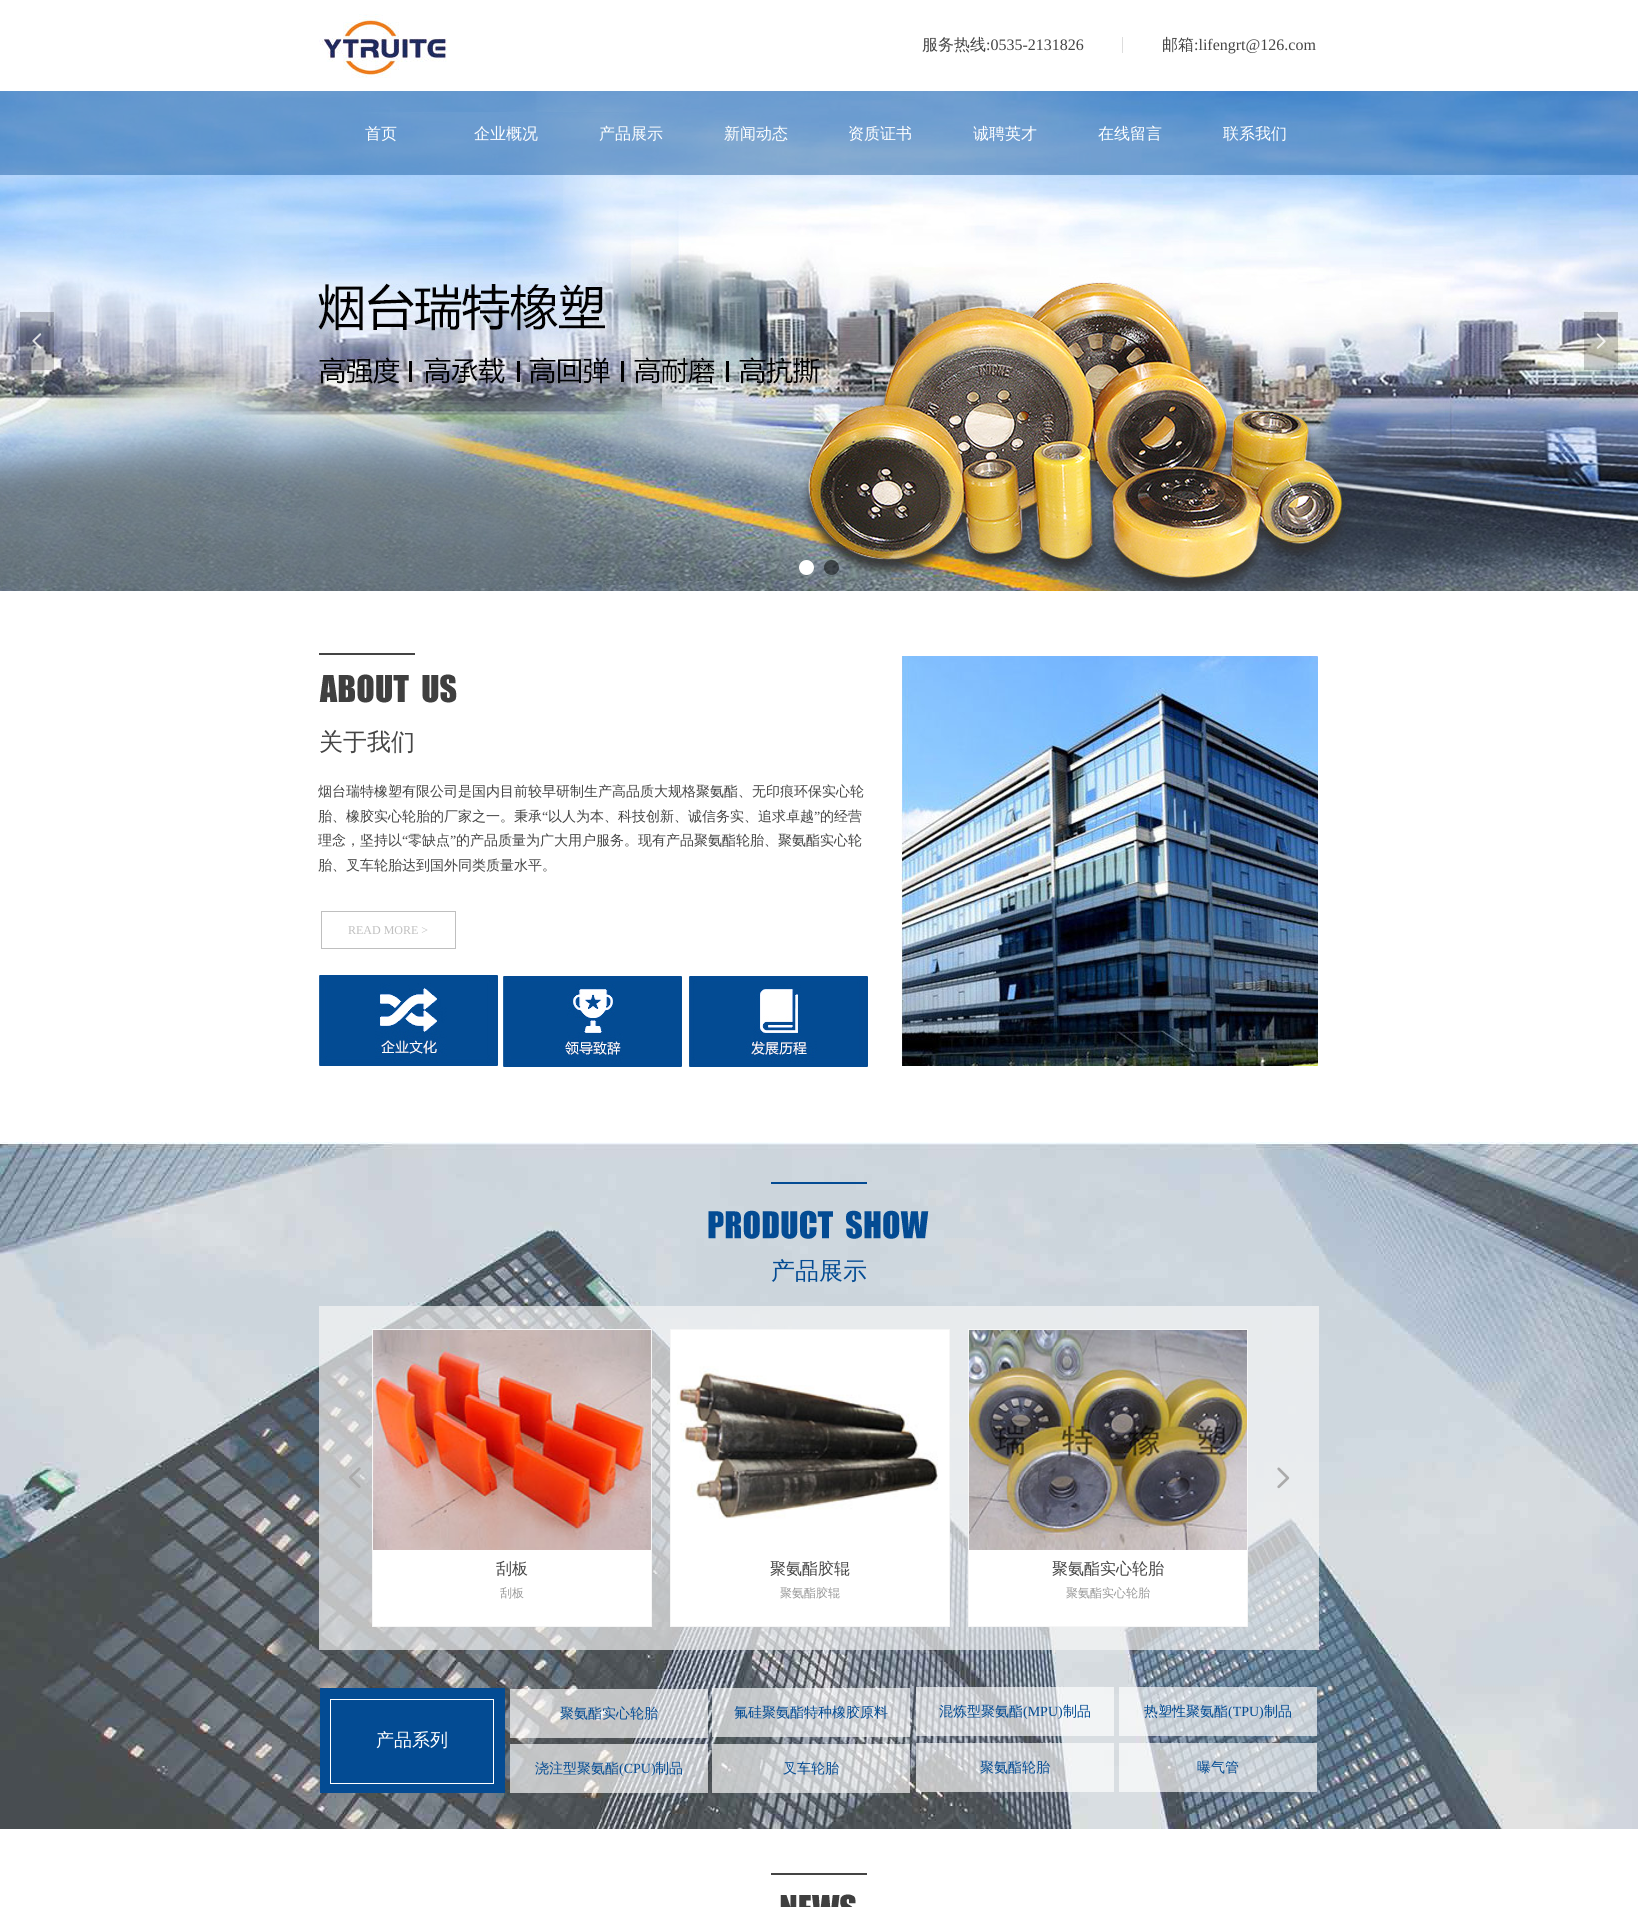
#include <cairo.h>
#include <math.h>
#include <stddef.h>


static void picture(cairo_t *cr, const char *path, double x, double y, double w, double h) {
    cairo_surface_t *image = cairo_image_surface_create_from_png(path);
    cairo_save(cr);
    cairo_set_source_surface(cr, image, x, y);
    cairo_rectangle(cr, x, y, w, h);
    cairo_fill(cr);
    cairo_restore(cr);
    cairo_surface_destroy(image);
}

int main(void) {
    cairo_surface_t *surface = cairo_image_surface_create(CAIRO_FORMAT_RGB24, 1638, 1907);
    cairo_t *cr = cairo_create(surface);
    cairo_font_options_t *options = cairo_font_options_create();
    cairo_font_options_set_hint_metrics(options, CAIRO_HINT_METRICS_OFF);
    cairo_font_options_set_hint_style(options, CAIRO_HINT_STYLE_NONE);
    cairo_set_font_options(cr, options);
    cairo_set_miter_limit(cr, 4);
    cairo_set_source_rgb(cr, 1, 1, 1);
    cairo_paint(cr);
    picture(cr, "img1.png", 319, 14, 128, 64);
    cairo_select_font_face(cr, "WenQuanYi Zen Hei Medium", CAIRO_FONT_SLANT_NORMAL, CAIRO_FONT_WEIGHT_NORMAL);
    cairo_set_font_size(cr, 16);
    cairo_set_source_rgb(cr, 0.267, 0.267, 0.267);
    cairo_move_to(cr, 922, 50);
    cairo_show_text(cr, "服务热线");
    cairo_select_font_face(cr, "Liberation Serif", CAIRO_FONT_SLANT_NORMAL, CAIRO_FONT_WEIGHT_NORMAL);
    cairo_move_to(cr, 986, 50);
    cairo_show_text(cr, ":0535-2131826");
    cairo_set_source_rgb(cr, 0.867, 0.867, 0.867);
    cairo_rectangle(cr, 1122, 37, 1, 16);
    cairo_fill(cr);
    cairo_select_font_face(cr, "WenQuanYi Zen Hei Medium", CAIRO_FONT_SLANT_NORMAL, CAIRO_FONT_WEIGHT_NORMAL);
    cairo_set_source_rgb(cr, 0.267, 0.267, 0.267);
    cairo_move_to(cr, 1162, 50);
    cairo_show_text(cr, "邮箱");
    cairo_select_font_face(cr, "Liberation Serif", CAIRO_FONT_SLANT_NORMAL, CAIRO_FONT_WEIGHT_NORMAL);
    cairo_move_to(cr, 1194, 50);
    cairo_show_text(cr, ":lifengrt@126.com");
    picture(cr, "img2.png", 0, 91, 1638, 500);
    cairo_set_source_rgba(cr, 0, 0, 0, 0.2);
    cairo_rectangle(cr, 20, 312, 34, 58);
    cairo_fill(cr);
    picture(cr, "img3.png", 32, 333, 10, 16);
    cairo_rectangle(cr, 1584, 312, 34, 58);
    cairo_fill(cr);
    picture(cr, "img4.png", 1596, 333, 10, 16);
    cairo_set_source_rgb(cr, 1, 1, 1);
    cairo_arc(cr, 806.5, 567.5, 7.5, 0, 2 * M_PI);
    cairo_fill(cr);
    cairo_set_source_rgba(cr, 0, 0, 0, 0.5);
    cairo_arc(cr, 831.5, 567.5, 7.5, 0, 2 * M_PI);
    cairo_fill(cr);
    cairo_set_source_rgba(cr, 0.012, 0.294, 0.576, 0.42);
    cairo_rectangle(cr, 0, 91, 1638, 84);
    cairo_fill(cr);
    cairo_select_font_face(cr, "WenQuanYi Zen Hei Medium", CAIRO_FONT_SLANT_NORMAL, CAIRO_FONT_WEIGHT_NORMAL);
    cairo_set_source_rgb(cr, 1, 1, 1);
    cairo_move_to(cr, 365, 139);
    cairo_show_text(cr, "首页");
    cairo_move_to(cr, 474, 139);
    cairo_show_text(cr, "企业概况");
    cairo_move_to(cr, 599, 139);
    cairo_show_text(cr, "产品展示");
    cairo_move_to(cr, 724, 139);
    cairo_show_text(cr, "新闻动态");
    cairo_move_to(cr, 848, 139);
    cairo_show_text(cr, "资质证书");
    cairo_move_to(cr, 973, 139);
    cairo_show_text(cr, "诚聘英才");
    cairo_move_to(cr, 1098, 139);
    cairo_show_text(cr, "在线留言");
    cairo_move_to(cr, 1223, 139);
    cairo_show_text(cr, "联系我们");
    cairo_set_source_rgb(cr, 0.267, 0.267, 0.267);
    cairo_rectangle(cr, 319, 653, 96, 2);
    cairo_fill(cr);
    picture(cr, "img5.png", 319, 674, 138, 29);
    picture(cr, "img6.png", 901, 656, 417, 410);
    cairo_set_font_size(cr, 24);
    cairo_move_to(cr, 319, 750);
    cairo_show_text(cr, "关于我们");
    cairo_set_font_size(cr, 14);
    cairo_move_to(cr, 318, 796);
    cairo_show_text(cr, "烟台瑞特橡塑有限公司是国内目前较早研制生产高品质大规格聚氨酯、无印痕环保实心轮");
    cairo_move_to(cr, 318, 821);
    cairo_show_text(cr, "胎、橡胶实心轮胎的厂家之一。秉承");
    cairo_select_font_face(cr, "Liberation Serif", CAIRO_FONT_SLANT_NORMAL, CAIRO_FONT_WEIGHT_NORMAL);
    cairo_move_to(cr, 542, 821);
    cairo_show_text(cr, "“");
    cairo_select_font_face(cr, "WenQuanYi Zen Hei Medium", CAIRO_FONT_SLANT_NORMAL, CAIRO_FONT_WEIGHT_NORMAL);
    cairo_move_to(cr, 548, 821);
    cairo_show_text(cr, "以人为本、科技创新、诚信务实、追求卓越");
    cairo_select_font_face(cr, "Liberation Serif", CAIRO_FONT_SLANT_NORMAL, CAIRO_FONT_WEIGHT_NORMAL);
    cairo_move_to(cr, 814, 821);
    cairo_show_text(cr, "”");
    cairo_select_font_face(cr, "WenQuanYi Zen Hei Medium", CAIRO_FONT_SLANT_NORMAL, CAIRO_FONT_WEIGHT_NORMAL);
    cairo_move_to(cr, 820, 821);
    cairo_show_text(cr, "的经营");
    cairo_move_to(cr, 318, 845);
    cairo_show_text(cr, "理念，坚持以");
    cairo_select_font_face(cr, "Liberation Serif", CAIRO_FONT_SLANT_NORMAL, CAIRO_FONT_WEIGHT_NORMAL);
    cairo_move_to(cr, 402, 845);
    cairo_show_text(cr, "“");
    cairo_select_font_face(cr, "WenQuanYi Zen Hei Medium", CAIRO_FONT_SLANT_NORMAL, CAIRO_FONT_WEIGHT_NORMAL);
    cairo_move_to(cr, 408, 845);
    cairo_show_text(cr, "零缺点");
    cairo_select_font_face(cr, "Liberation Serif", CAIRO_FONT_SLANT_NORMAL, CAIRO_FONT_WEIGHT_NORMAL);
    cairo_move_to(cr, 450, 845);
    cairo_show_text(cr, "”");
    cairo_select_font_face(cr, "WenQuanYi Zen Hei Medium", CAIRO_FONT_SLANT_NORMAL, CAIRO_FONT_WEIGHT_NORMAL);
    cairo_move_to(cr, 456, 845);
    cairo_show_text(cr, "的产品质量为广大用户服务。现有产品聚氨酯轮胎、聚氨酯实心轮");
    cairo_move_to(cr, 318, 870);
    cairo_show_text(cr, "胎、叉车轮胎达到国外同类质量水平。");
    cairo_rectangle(cr, 321.5, 911.5, 134, 37);
    cairo_set_source_rgb(cr, 0.749, 0.749, 0.749);
    cairo_set_line_width(cr, 1);
    cairo_stroke(cr);
    cairo_select_font_face(cr, "Liberation Serif", CAIRO_FONT_SLANT_NORMAL, CAIRO_FONT_WEIGHT_NORMAL);
    cairo_set_font_size(cr, 12);
    cairo_move_to(cr, 348, 934);
    cairo_show_text(cr, "READ MORE >");
    picture(cr, "img7.png", 319, 975, 179, 91);
    picture(cr, "img8.png", 503, 976, 179, 91);
    picture(cr, "img9.png", 689, 976, 179, 91);
    picture(cr, "img10.png", 0, 1142, 1638, 687);
    cairo_set_source_rgb(cr, 0.012, 0.294, 0.576);
    cairo_rectangle(cr, 771, 1182, 96, 2);
    cairo_fill(cr);
    picture(cr, "img11.png", 708, 1210, 221, 29);
    cairo_select_font_face(cr, "WenQuanYi Zen Hei Medium", CAIRO_FONT_SLANT_NORMAL, CAIRO_FONT_WEIGHT_NORMAL);
    cairo_set_font_size(cr, 24);
    cairo_move_to(cr, 771, 1279);
    cairo_show_text(cr, "产品展示");
    cairo_set_source_rgba(cr, 0.961, 0.961, 0.961, 0.68);
    cairo_rectangle(cr, 319, 1306, 1000, 344);
    cairo_fill(cr);
    picture(cr, "img12.png", 349, 1467, 12, 21);
    picture(cr, "img13.png", 1277, 1467, 13, 22);
    cairo_set_source_rgb(cr, 1, 1, 1);
    cairo_rectangle(cr, 373, 1550, 278, 76);
    cairo_fill(cr);
    cairo_rectangle(cr, 372.5, 1329.5, 279, 297);
    cairo_set_source_rgb(cr, 0.961, 0.961, 0.961);
    cairo_stroke(cr);
    picture(cr, "img14.png", 373, 1330, 278, 220);
    cairo_set_font_size(cr, 16);
    cairo_set_source_rgb(cr, 0.267, 0.267, 0.267);
    cairo_move_to(cr, 496, 1574);
    cairo_show_text(cr, "刮板");
    cairo_set_font_size(cr, 12);
    cairo_set_source_rgb(cr, 0.6, 0.6, 0.6);
    cairo_move_to(cr, 500, 1597);
    cairo_show_text(cr, "刮板");
    cairo_set_source_rgb(cr, 1, 1, 1);
    cairo_rectangle(cr, 670.5, 1329.5, 279, 297);
    cairo_fill_preserve(cr);
    cairo_set_source_rgb(cr, 0.961, 0.961, 0.961);
    cairo_stroke(cr);
    picture(cr, "img15.png", 677, 1366, 261, 153);
    cairo_set_font_size(cr, 16);
    cairo_set_source_rgb(cr, 0.267, 0.267, 0.267);
    cairo_move_to(cr, 770, 1574);
    cairo_show_text(cr, "聚氨酯胶辊");
    cairo_set_font_size(cr, 12);
    cairo_set_source_rgb(cr, 0.6, 0.6, 0.6);
    cairo_move_to(cr, 780, 1597);
    cairo_show_text(cr, "聚氨酯胶辊");
    cairo_set_source_rgb(cr, 1, 1, 1);
    cairo_rectangle(cr, 969, 1550, 278, 76);
    cairo_fill(cr);
    cairo_rectangle(cr, 968.5, 1329.5, 279, 297);
    cairo_set_source_rgb(cr, 0.961, 0.961, 0.961);
    cairo_stroke(cr);
    picture(cr, "img16.png", 969, 1330, 278, 220);
    cairo_set_font_size(cr, 16);
    cairo_set_source_rgb(cr, 0.267, 0.267, 0.267);
    cairo_move_to(cr, 1052, 1574);
    cairo_show_text(cr, "聚氨酯实心轮胎");
    cairo_set_font_size(cr, 12);
    cairo_set_source_rgb(cr, 0.6, 0.6, 0.6);
    cairo_move_to(cr, 1066, 1597);
    cairo_show_text(cr, "聚氨酯实心轮胎");
    cairo_set_source_rgba(cr, 1, 1, 1, 0.66);
    cairo_rectangle(cr, 510, 1689, 198, 49);
    cairo_fill(cr);
    cairo_set_font_size(cr, 14);
    cairo_set_source_rgb(cr, 0.012, 0.294, 0.576);
    cairo_move_to(cr, 560, 1718);
    cairo_show_text(cr, "聚氨酯实心轮胎");
    cairo_set_source_rgba(cr, 1, 1, 1, 0.66);
    cairo_rectangle(cr, 712, 1688, 198, 49);
    cairo_fill(cr);
    cairo_set_source_rgb(cr, 0.012, 0.294, 0.576);
    cairo_move_to(cr, 734, 1717);
    cairo_show_text(cr, "氟硅聚氨酯特种橡胶原料");
    cairo_set_source_rgba(cr, 1, 1, 1, 0.66);
    cairo_rectangle(cr, 916, 1687, 198, 49);
    cairo_fill(cr);
    cairo_set_source_rgb(cr, 0.012, 0.294, 0.576);
    cairo_move_to(cr, 939, 1716);
    cairo_show_text(cr, "混炼型聚氨酯");
    cairo_select_font_face(cr, "Liberation Serif", CAIRO_FONT_SLANT_NORMAL, CAIRO_FONT_WEIGHT_NORMAL);
    cairo_move_to(cr, 1023, 1716);
    cairo_show_text(cr, "(MPU)");
    cairo_select_font_face(cr, "WenQuanYi Zen Hei Medium", CAIRO_FONT_SLANT_NORMAL, CAIRO_FONT_WEIGHT_NORMAL);
    cairo_move_to(cr, 1063, 1716);
    cairo_show_text(cr, "制品");
    cairo_set_source_rgba(cr, 1, 1, 1, 0.66);
    cairo_rectangle(cr, 1119, 1687, 198, 49);
    cairo_fill(cr);
    cairo_set_source_rgb(cr, 0.012, 0.294, 0.576);
    cairo_move_to(cr, 1144, 1716);
    cairo_show_text(cr, "热塑性聚氨酯");
    cairo_select_font_face(cr, "Liberation Serif", CAIRO_FONT_SLANT_NORMAL, CAIRO_FONT_WEIGHT_NORMAL);
    cairo_move_to(cr, 1228, 1716);
    cairo_show_text(cr, "(TPU)");
    cairo_select_font_face(cr, "WenQuanYi Zen Hei Medium", CAIRO_FONT_SLANT_NORMAL, CAIRO_FONT_WEIGHT_NORMAL);
    cairo_move_to(cr, 1264, 1716);
    cairo_show_text(cr, "制品");
    cairo_rectangle(cr, 320, 1688, 185, 105);
    cairo_fill(cr);
    cairo_rectangle(cr, 330.5, 1699.5, 163, 84);
    cairo_set_source_rgb(cr, 1, 1, 1);
    cairo_stroke(cr);
    cairo_set_font_size(cr, 18);
    cairo_move_to(cr, 376, 1746);
    cairo_show_text(cr, "产品系列");
    cairo_set_source_rgba(cr, 1, 1, 1, 0.66);
    cairo_rectangle(cr, 510, 1744, 198, 49);
    cairo_fill(cr);
    cairo_set_font_size(cr, 14);
    cairo_set_source_rgb(cr, 0.012, 0.294, 0.576);
    cairo_move_to(cr, 535, 1773);
    cairo_show_text(cr, "浇注型聚氨酯");
    cairo_select_font_face(cr, "Liberation Serif", CAIRO_FONT_SLANT_NORMAL, CAIRO_FONT_WEIGHT_NORMAL);
    cairo_move_to(cr, 619, 1773);
    cairo_show_text(cr, "(CPU)");
    cairo_select_font_face(cr, "WenQuanYi Zen Hei Medium", CAIRO_FONT_SLANT_NORMAL, CAIRO_FONT_WEIGHT_NORMAL);
    cairo_move_to(cr, 655, 1773);
    cairo_show_text(cr, "制品");
    cairo_set_source_rgba(cr, 1, 1, 1, 0.66);
    cairo_rectangle(cr, 712, 1744, 198, 49);
    cairo_fill(cr);
    cairo_set_source_rgb(cr, 0.012, 0.294, 0.576);
    cairo_move_to(cr, 783, 1773);
    cairo_show_text(cr, "叉车轮胎");
    cairo_set_source_rgba(cr, 1, 1, 1, 0.66);
    cairo_rectangle(cr, 916, 1743, 198, 49);
    cairo_fill(cr);
    cairo_set_source_rgb(cr, 0.012, 0.294, 0.576);
    cairo_move_to(cr, 980, 1772);
    cairo_show_text(cr, "聚氨酯轮胎");
    cairo_set_source_rgba(cr, 1, 1, 1, 0.66);
    cairo_rectangle(cr, 1119, 1743, 198, 49);
    cairo_fill(cr);
    cairo_set_source_rgb(cr, 0.012, 0.294, 0.576);
    cairo_move_to(cr, 1197, 1772);
    cairo_show_text(cr, "曝气管");
    cairo_set_source_rgb(cr, 0.267, 0.267, 0.267);
    cairo_rectangle(cr, 771, 1873, 96, 2);
    cairo_fill(cr);
    picture(cr, "img17.png", 780, 1894, 76, 13);
    cairo_surface_write_to_png(surface, "page.png");
    cairo_font_options_destroy(options);
    cairo_destroy(cr);
    cairo_surface_destroy(surface);
    return 0;
}
